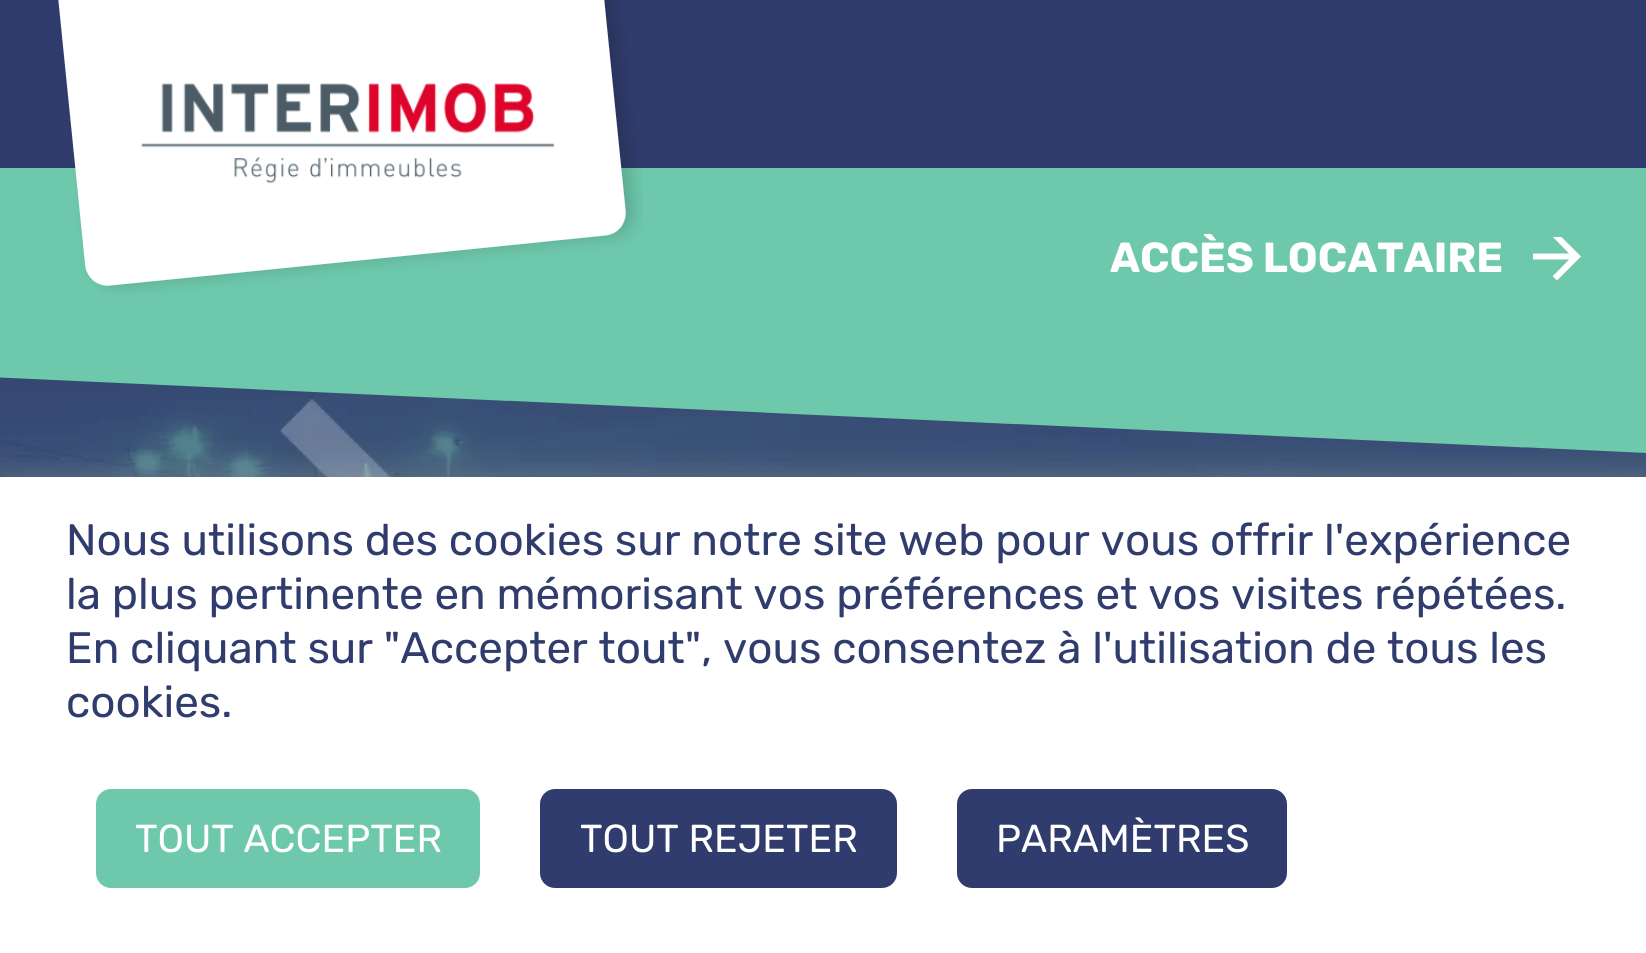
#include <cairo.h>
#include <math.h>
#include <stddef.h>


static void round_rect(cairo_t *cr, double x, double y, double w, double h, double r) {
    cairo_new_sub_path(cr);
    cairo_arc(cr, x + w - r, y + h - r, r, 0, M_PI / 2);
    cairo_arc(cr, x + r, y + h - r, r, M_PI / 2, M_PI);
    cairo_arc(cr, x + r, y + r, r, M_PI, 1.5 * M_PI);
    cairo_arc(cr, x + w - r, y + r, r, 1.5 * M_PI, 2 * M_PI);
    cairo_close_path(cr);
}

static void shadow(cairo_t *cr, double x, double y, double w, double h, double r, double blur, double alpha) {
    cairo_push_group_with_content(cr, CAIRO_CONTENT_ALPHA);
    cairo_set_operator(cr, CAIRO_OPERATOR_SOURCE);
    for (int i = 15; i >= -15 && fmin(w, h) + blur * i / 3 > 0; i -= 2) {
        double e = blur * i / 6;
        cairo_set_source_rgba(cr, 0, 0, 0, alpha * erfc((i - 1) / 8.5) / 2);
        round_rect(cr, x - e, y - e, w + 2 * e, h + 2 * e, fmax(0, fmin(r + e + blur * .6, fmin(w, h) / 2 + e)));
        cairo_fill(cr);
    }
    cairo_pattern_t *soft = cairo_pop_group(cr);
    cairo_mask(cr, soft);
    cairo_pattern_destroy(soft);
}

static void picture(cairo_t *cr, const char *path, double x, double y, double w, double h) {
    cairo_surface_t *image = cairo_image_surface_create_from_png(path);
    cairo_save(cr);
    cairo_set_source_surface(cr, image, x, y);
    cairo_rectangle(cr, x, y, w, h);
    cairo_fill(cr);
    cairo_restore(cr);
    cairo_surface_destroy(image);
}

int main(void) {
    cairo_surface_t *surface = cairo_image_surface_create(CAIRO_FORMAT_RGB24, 1646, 953);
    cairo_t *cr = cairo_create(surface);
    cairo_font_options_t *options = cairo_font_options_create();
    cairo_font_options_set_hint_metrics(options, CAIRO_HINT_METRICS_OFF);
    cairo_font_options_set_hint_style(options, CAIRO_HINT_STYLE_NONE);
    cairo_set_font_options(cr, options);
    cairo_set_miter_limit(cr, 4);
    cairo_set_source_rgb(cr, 1, 1, 1);
    cairo_paint(cr);
    cairo_set_source_rgb(cr, 0.188, 0.235, 0.427);
    cairo_rectangle(cr, 0, 0, 1646, 168);
    cairo_fill(cr);
    cairo_set_source_rgb(cr, 0.431, 0.788, 0.675);
    cairo_rectangle(cr, 0, 168, 1646, 168);
    cairo_fill(cr);
    picture(cr, "img1.png", 58, 0, 585, 294);
    cairo_select_font_face(cr, "Rubik", CAIRO_FONT_SLANT_NORMAL, CAIRO_FONT_WEIGHT_BOLD);
    cairo_set_font_size(cr, 42);
    cairo_set_source_rgb(cr, 1, 1, 1);
    cairo_move_to(cr, 1110, 272);
    cairo_show_text(cr, "ACCÈS LOCATAIRE");
    picture(cr, "img2.png", 1533, 237, 48, 44);
    picture(cr, "img4.png", 0, 377, 1646, 100);
    picture(cr, "img3.png", 0, 336, 1646, 117);
    cairo_set_source_rgb(cr, 0.675, 0.671, 0.671);
    shadow(cr, 0, 474, 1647, 477, 0, 15, 0.3);
    cairo_set_source_rgb(cr, 1, 1, 1);
    cairo_rectangle(cr, 0, 477, 1646, 476);
    cairo_fill(cr);
    cairo_select_font_face(cr, "Rubik", CAIRO_FONT_SLANT_NORMAL, CAIRO_FONT_WEIGHT_NORMAL);
    cairo_set_font_size(cr, 44);
    cairo_set_source_rgb(cr, 0.188, 0.235, 0.427);
    cairo_move_to(cr, 66, 555);
    cairo_show_text(cr, "Nous utilisons des cookies sur notre site web pour vous offrir l'expérience");
    cairo_move_to(cr, 66, 609);
    cairo_show_text(cr, "la plus pertinente en mémorisant vos préférences et vos visites répétées.");
    cairo_move_to(cr, 66, 663);
    cairo_show_text(cr, "En cliquant sur \"Accepter tout\", vous consentez à l'utilisation de tous les");
    cairo_move_to(cr, 66, 717);
    cairo_show_text(cr, "cookies.");
    cairo_set_source_rgb(cr, 0.431, 0.788, 0.675);
    round_rect(cr, 97.5, 790.5, 381, 96, 13.5);
    cairo_fill_preserve(cr);
    cairo_set_line_width(cr, 3);
    cairo_stroke(cr);
    cairo_set_font_size(cr, 39);
    cairo_set_source_rgb(cr, 1, 1, 1);
    cairo_move_to(cr, 135, 852);
    cairo_show_text(cr, "TOUT ACCEPTER");
    cairo_set_source_rgb(cr, 0.188, 0.235, 0.427);
    round_rect(cr, 541.5, 790.5, 354, 96, 13.5);
    cairo_fill_preserve(cr);
    cairo_stroke(cr);
    cairo_set_source_rgb(cr, 1, 1, 1);
    cairo_move_to(cr, 580, 852);
    cairo_show_text(cr, "TOUT REJETER");
    cairo_set_source_rgb(cr, 0.188, 0.235, 0.427);
    round_rect(cr, 958.5, 790.5, 327, 96, 13.5);
    cairo_fill_preserve(cr);
    cairo_stroke(cr);
    cairo_set_source_rgb(cr, 1, 1, 1);
    cairo_move_to(cr, 996, 852);
    cairo_show_text(cr, "PARAMÈTRES");
    cairo_surface_write_to_png(surface, "page.png");
    cairo_font_options_destroy(options);
    cairo_destroy(cr);
    cairo_surface_destroy(surface);
    return 0;
}
